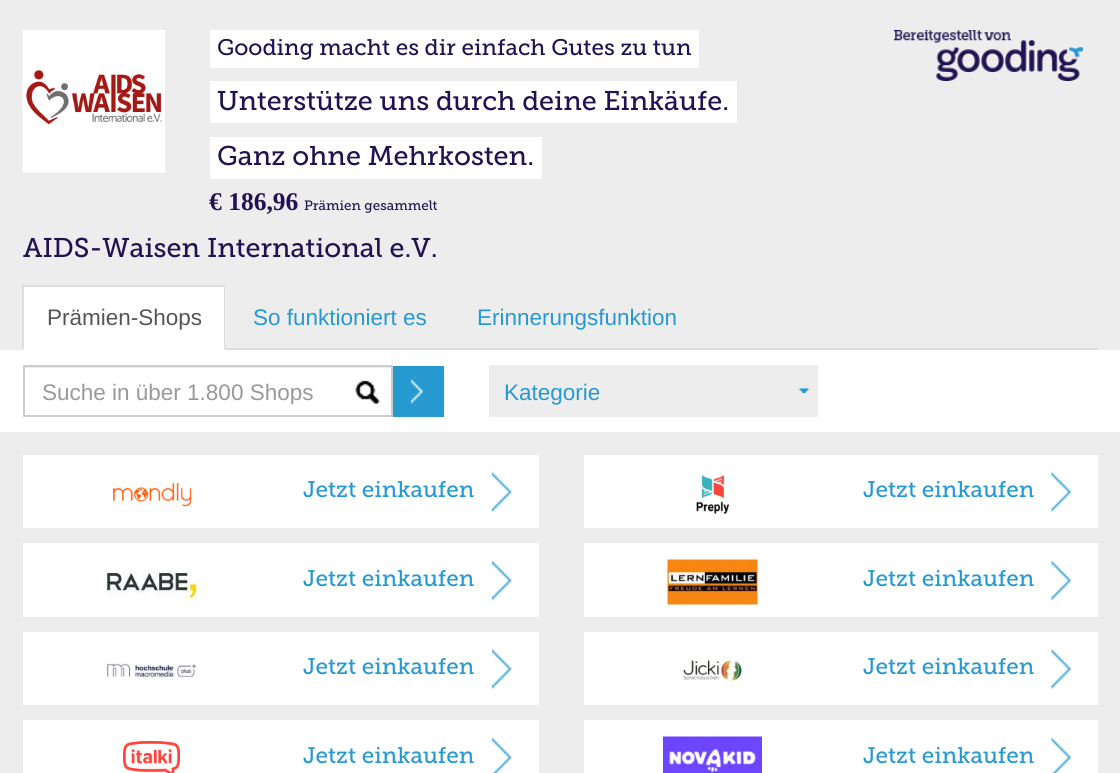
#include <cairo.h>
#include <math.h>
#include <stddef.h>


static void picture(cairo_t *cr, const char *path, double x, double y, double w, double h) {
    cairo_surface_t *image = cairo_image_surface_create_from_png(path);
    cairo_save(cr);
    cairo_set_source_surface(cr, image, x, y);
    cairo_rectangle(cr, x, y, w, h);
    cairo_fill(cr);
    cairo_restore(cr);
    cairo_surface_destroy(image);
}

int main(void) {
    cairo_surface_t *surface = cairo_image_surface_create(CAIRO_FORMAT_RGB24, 1120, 773);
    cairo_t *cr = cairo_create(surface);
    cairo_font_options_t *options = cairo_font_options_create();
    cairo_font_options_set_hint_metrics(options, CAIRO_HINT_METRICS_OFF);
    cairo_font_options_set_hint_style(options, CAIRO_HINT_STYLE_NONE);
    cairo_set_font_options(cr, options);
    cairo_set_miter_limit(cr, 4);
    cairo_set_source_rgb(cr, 0.929, 0.929, 0.929);
    cairo_paint(cr);
    picture(cr, "img1.png", 22, 30, 143, 143);
    cairo_set_source_rgb(cr, 1, 1, 1);
    cairo_rectangle(cr, 210, 30, 489, 38);
    cairo_fill(cr);
    cairo_select_font_face(cr, "Museo Slab", CAIRO_FONT_SLANT_NORMAL, CAIRO_FONT_WEIGHT_NORMAL);
    cairo_set_font_size(cr, 22.5);
    cairo_set_source_rgb(cr, 0.129, 0.078, 0.322);
    cairo_move_to(cr, 217, 55);
    cairo_show_text(cr, "Gooding macht es dir einfach Gutes zu tun");
    cairo_set_source_rgb(cr, 1, 1, 1);
    cairo_rectangle(cr, 210, 81, 527, 42);
    cairo_fill(cr);
    cairo_set_font_size(cr, 27);
    cairo_set_source_rgb(cr, 0.129, 0.078, 0.322);
    cairo_move_to(cr, 217, 110);
    cairo_show_text(cr, "Unterstütze uns durch deine Einkäufe.");
    cairo_set_source_rgb(cr, 1, 1, 1);
    cairo_rectangle(cr, 210, 137, 332, 42);
    cairo_fill(cr);
    cairo_set_source_rgb(cr, 0.129, 0.078, 0.322);
    cairo_move_to(cr, 217, 165);
    cairo_show_text(cr, "Ganz ohne Mehrkosten.");
    picture(cr, "img2.png", 894, 30, 189, 51);
    cairo_select_font_face(cr, "Liberation Serif", CAIRO_FONT_SLANT_NORMAL, CAIRO_FONT_WEIGHT_BOLD);
    cairo_set_font_size(cr, 25.5);
    cairo_move_to(cr, 209, 210);
    cairo_show_text(cr, "€ 186,96");
    cairo_select_font_face(cr, "Museo Slab", CAIRO_FONT_SLANT_NORMAL, CAIRO_FONT_WEIGHT_NORMAL);
    cairo_set_font_size(cr, 13.5);
    cairo_move_to(cr, 304, 210);
    cairo_show_text(cr, "Prämien gesammelt");
    cairo_set_font_size(cr, 27);
    cairo_move_to(cr, 23, 257);
    cairo_show_text(cr, "AIDS-Waisen International e.V.");
    cairo_set_source_rgb(cr, 0.867, 0.867, 0.867);
    cairo_rectangle(cr, 225, 348, 873, 2);
    cairo_fill(cr);
    cairo_set_source_rgb(cr, 1, 1, 1);
    cairo_rectangle(cr, 23, 287, 202, 63);
    cairo_fill(cr);
    cairo_set_source_rgb(cr, 0.867, 0.867, 0.867);
    cairo_rectangle(cr, 23, 285, 202, 2);
    cairo_fill(cr);
    cairo_new_path(cr);
    cairo_move_to(cr, 225, 285);
    cairo_line_to(cr, 225, 350);
    cairo_line_to(cr, 224, 348);
    cairo_line_to(cr, 224, 286);
    cairo_close_path(cr);
    cairo_fill(cr);
    cairo_new_path(cr);
    cairo_move_to(cr, 22, 350);
    cairo_line_to(cr, 22, 285);
    cairo_line_to(cr, 24, 286);
    cairo_line_to(cr, 24, 348);
    cairo_close_path(cr);
    cairo_fill(cr);
    cairo_select_font_face(cr, "Liberation Sans", CAIRO_FONT_SLANT_NORMAL, CAIRO_FONT_WEIGHT_NORMAL);
    cairo_set_font_size(cr, 22.5);
    cairo_set_source_rgb(cr, 0.333, 0.333, 0.333);
    cairo_move_to(cr, 47, 325);
    cairo_show_text(cr, "Prämien-Shops");
    cairo_set_source_rgb(cr, 0.149, 0.6, 0.82);
    cairo_move_to(cr, 253, 325);
    cairo_show_text(cr, "So funktioniert es");
    cairo_move_to(cr, 477, 325);
    cairo_show_text(cr, "Erinnerungsfunktion");
    cairo_set_source_rgb(cr, 1, 1, 1);
    cairo_rectangle(cr, 0, 350, 1120, 82);
    cairo_fill(cr);
    picture(cr, "img3.png", 355, 380, 25, 24);
    cairo_set_source_rgb(cr, 0.925, 0.925, 0.925);
    cairo_rectangle(cr, 24, 367, 368, 1);
    cairo_fill(cr);
    cairo_rectangle(cr, 24, 366, 368, 50);
    cairo_set_source_rgb(cr, 0.8, 0.8, 0.8);
    cairo_stroke(cr);
    cairo_save(cr);
    cairo_rectangle(cr, 42, 378, 332, 26);
    cairo_clip(cr);
    cairo_set_source_rgb(cr, 0.6, 0.6, 0.6);
    cairo_move_to(cr, 42, 400);
    cairo_show_text(cr, "Suche in über 1.800 Shops");
    cairo_restore(cr);
    cairo_set_source_rgb(cr, 0.149, 0.6, 0.82);
    cairo_rectangle(cr, 393, 366, 51, 51);
    cairo_fill(cr);
    picture(cr, "img4.png", 411, 376, 13, 31);
    cairo_set_source_rgb(cr, 0.929, 0.929, 0.929);
    cairo_rectangle(cr, 489, 365, 329, 52);
    cairo_fill(cr);
    picture(cr, "img5.png", 799, 388, 10, 5);
    cairo_set_source_rgb(cr, 0.149, 0.6, 0.82);
    cairo_move_to(cr, 504, 400);
    cairo_show_text(cr, "Kategorie");
    cairo_set_source_rgb(cr, 1, 1, 1);
    cairo_rectangle(cr, 23, 455, 516, 73);
    cairo_fill(cr);
    picture(cr, "img6.png", 113, 483, 79, 24);
    cairo_select_font_face(cr, "Museo Slab", CAIRO_FONT_SLANT_NORMAL, CAIRO_FONT_WEIGHT_NORMAL);
    cairo_set_source_rgb(cr, 0.149, 0.6, 0.82);
    cairo_move_to(cr, 303, 497);
    cairo_show_text(cr, "Jetzt einkaufen");
    picture(cr, "img7.png", 492, 472, 20, 40);
    cairo_set_source_rgb(cr, 1, 1, 1);
    cairo_rectangle(cr, 584, 455, 514, 73);
    cairo_fill(cr);
    picture(cr, "img8.png", 696, 474, 34, 40);
    cairo_set_source_rgb(cr, 0.149, 0.6, 0.82);
    cairo_move_to(cr, 863, 497);
    cairo_show_text(cr, "Jetzt einkaufen");
    picture(cr, "img9.png", 1051, 472, 21, 40);
    cairo_set_source_rgb(cr, 1, 1, 1);
    cairo_rectangle(cr, 23, 543, 516, 74);
    cairo_fill(cr);
    picture(cr, "img10.png", 106, 571, 91, 34);
    cairo_set_source_rgb(cr, 0.149, 0.6, 0.82);
    cairo_move_to(cr, 303, 586);
    cairo_show_text(cr, "Jetzt einkaufen");
    picture(cr, "img11.png", 492, 560, 20, 41);
    cairo_set_source_rgb(cr, 1, 1, 1);
    cairo_rectangle(cr, 584, 543, 514, 74);
    cairo_fill(cr);
    picture(cr, "img12.png", 667, 559, 91, 46);
    cairo_set_source_rgb(cr, 0.149, 0.6, 0.82);
    cairo_move_to(cr, 863, 586);
    cairo_show_text(cr, "Jetzt einkaufen");
    picture(cr, "img13.png", 1051, 560, 21, 41);
    cairo_set_source_rgb(cr, 1, 1, 1);
    cairo_rectangle(cr, 23, 632, 516, 73);
    cairo_fill(cr);
    picture(cr, "img14.png", 106, 663, 91, 15);
    cairo_set_source_rgb(cr, 0.149, 0.6, 0.82);
    cairo_move_to(cr, 303, 674);
    cairo_show_text(cr, "Jetzt einkaufen");
    picture(cr, "img7.png", 492, 649, 20, 40);
    cairo_set_source_rgb(cr, 1, 1, 1);
    cairo_rectangle(cr, 584, 632, 514, 73);
    cairo_fill(cr);
    picture(cr, "img15.png", 681, 659, 62, 25);
    cairo_set_source_rgb(cr, 0.149, 0.6, 0.82);
    cairo_move_to(cr, 863, 674);
    cairo_show_text(cr, "Jetzt einkaufen");
    picture(cr, "img9.png", 1051, 649, 21, 40);
    cairo_set_source_rgb(cr, 1, 1, 1);
    cairo_rectangle(cr, 23, 720, 516, 53);
    cairo_fill(cr);
    picture(cr, "img16.png", 123, 741, 57, 32);
    cairo_set_source_rgb(cr, 0.149, 0.6, 0.82);
    cairo_move_to(cr, 303, 763);
    cairo_show_text(cr, "Jetzt einkaufen");
    picture(cr, "img17.png", 492, 737, 20, 36);
    cairo_set_source_rgb(cr, 1, 1, 1);
    cairo_rectangle(cr, 584, 720, 514, 53);
    cairo_fill(cr);
    picture(cr, "img18.png", 663, 736, 99, 37);
    cairo_set_source_rgb(cr, 0.149, 0.6, 0.82);
    cairo_move_to(cr, 863, 763);
    cairo_show_text(cr, "Jetzt einkaufen");
    picture(cr, "img19.png", 1051, 737, 21, 36);
    cairo_surface_write_to_png(surface, "page.png");
    cairo_font_options_destroy(options);
    cairo_destroy(cr);
    cairo_surface_destroy(surface);
    return 0;
}
